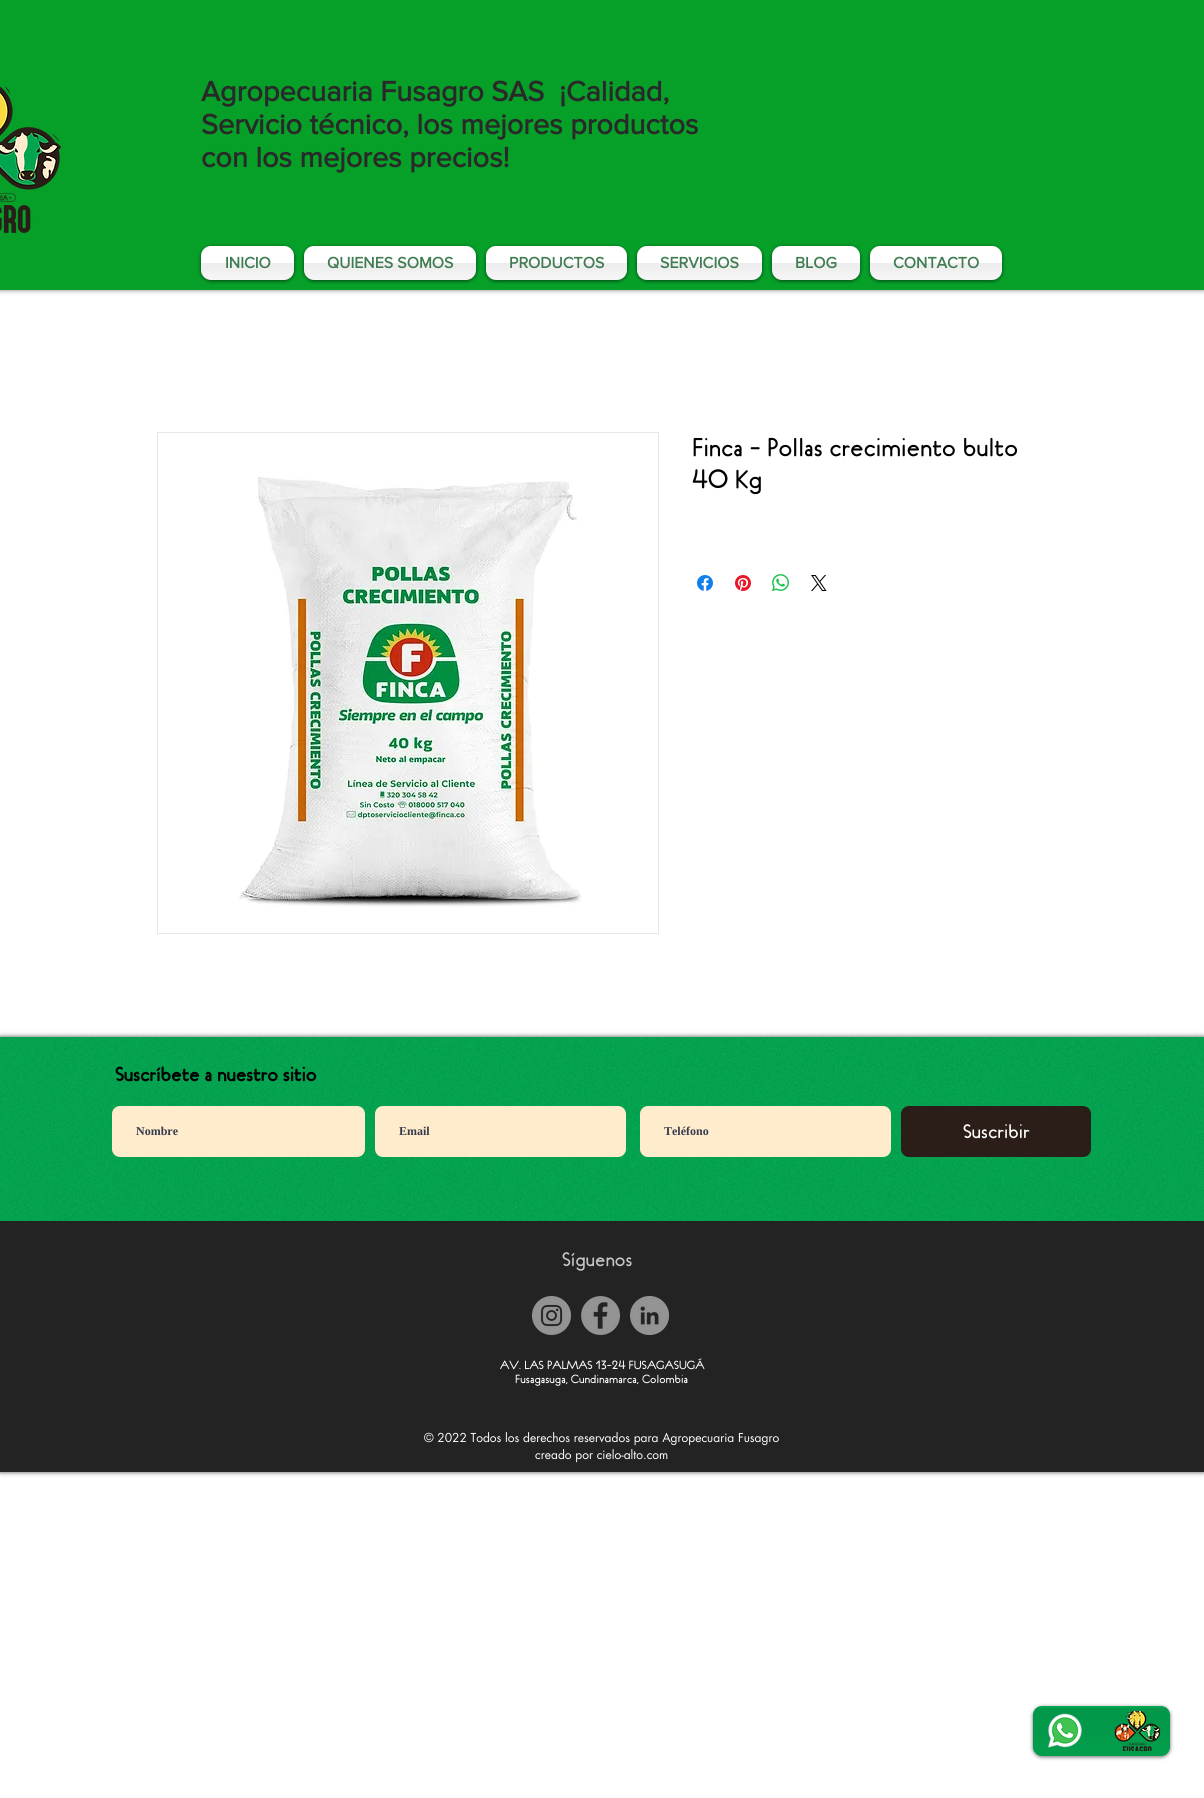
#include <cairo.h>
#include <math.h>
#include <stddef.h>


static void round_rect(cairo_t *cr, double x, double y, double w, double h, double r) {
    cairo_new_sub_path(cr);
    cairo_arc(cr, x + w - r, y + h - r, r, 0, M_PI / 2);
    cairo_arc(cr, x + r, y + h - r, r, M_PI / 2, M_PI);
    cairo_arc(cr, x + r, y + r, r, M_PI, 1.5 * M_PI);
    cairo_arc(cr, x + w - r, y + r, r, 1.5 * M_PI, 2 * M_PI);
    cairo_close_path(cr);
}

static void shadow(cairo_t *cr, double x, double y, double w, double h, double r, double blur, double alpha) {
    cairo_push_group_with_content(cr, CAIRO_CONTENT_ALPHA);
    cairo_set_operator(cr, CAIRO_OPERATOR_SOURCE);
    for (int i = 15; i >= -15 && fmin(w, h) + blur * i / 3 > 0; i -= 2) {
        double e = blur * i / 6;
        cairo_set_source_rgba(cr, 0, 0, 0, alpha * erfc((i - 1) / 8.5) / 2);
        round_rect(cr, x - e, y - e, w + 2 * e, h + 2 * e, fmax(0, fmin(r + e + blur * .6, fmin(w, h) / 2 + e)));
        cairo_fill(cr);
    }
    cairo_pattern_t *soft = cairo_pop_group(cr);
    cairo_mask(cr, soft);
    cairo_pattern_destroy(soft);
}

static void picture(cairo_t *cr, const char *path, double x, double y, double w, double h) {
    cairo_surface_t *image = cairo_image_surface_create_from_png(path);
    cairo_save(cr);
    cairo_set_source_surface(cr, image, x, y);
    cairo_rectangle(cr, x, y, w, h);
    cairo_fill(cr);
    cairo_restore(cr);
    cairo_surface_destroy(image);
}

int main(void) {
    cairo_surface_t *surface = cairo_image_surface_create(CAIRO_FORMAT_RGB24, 1204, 1798);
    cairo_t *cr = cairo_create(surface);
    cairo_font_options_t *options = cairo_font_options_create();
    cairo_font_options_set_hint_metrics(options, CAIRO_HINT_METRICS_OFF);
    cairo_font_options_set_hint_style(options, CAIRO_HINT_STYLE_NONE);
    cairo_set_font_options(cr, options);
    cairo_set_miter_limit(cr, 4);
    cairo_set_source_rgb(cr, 1, 1, 1);
    cairo_paint(cr);
    cairo_set_source_rgb(cr, 0, 0, 0);
    shadow(cr, 0, 0, 1204, 290, 0, 2.5, 0.5);
    cairo_set_source_rgb(cr, 0.024, 0.627, 0.161);
    cairo_rectangle(cr, 0, 0, 1204, 290);
    cairo_fill(cr);
    picture(cr, "img1.png", 0, 86, 61, 148);
    cairo_select_font_face(cr, "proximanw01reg", CAIRO_FONT_SLANT_NORMAL, CAIRO_FONT_WEIGHT_BOLD);
    cairo_set_font_size(cr, 29);
    cairo_set_source_rgb(cr, 0.161, 0.161, 0.161);
    cairo_move_to(cr, 201, 101);
    cairo_show_text(cr, "Agropecuaria Fusagro SAS  ¡Calidad,");
    cairo_move_to(cr, 201, 134);
    cairo_show_text(cr, "Servicio técnico, los mejores productos");
    cairo_move_to(cr, 201, 167);
    cairo_show_text(cr, "con los mejores precios!");
    cairo_set_source_rgb(cr, 0, 0, 0);
    shadow(cr, 201, 247, 93, 34, 10, 2, 0.6);
    cairo_set_source_rgb(cr, 1, 1, 1);
    round_rect(cr, 201, 246, 93, 34, 10);
    cairo_fill(cr);
    picture(cr, "img2.png", 201, 246, 93, 34);
    cairo_set_font_size(cr, 16);
    cairo_set_source_rgb(cr, 0.251, 0.486, 0.318);
    cairo_move_to(cr, 225, 268);
    cairo_show_text(cr, "INICIO");
    cairo_set_source_rgb(cr, 0, 0, 0);
    shadow(cr, 304, 247, 172, 34, 10, 2, 0.6);
    cairo_set_source_rgb(cr, 1, 1, 1);
    round_rect(cr, 304, 246, 172, 34, 10);
    cairo_fill(cr);
    picture(cr, "img3.png", 304, 246, 172, 34);
    cairo_set_source_rgb(cr, 0.251, 0.486, 0.318);
    cairo_move_to(cr, 327, 268);
    cairo_show_text(cr, "QUIENES SOMOS");
    cairo_set_source_rgb(cr, 0, 0, 0);
    shadow(cr, 486, 247, 141, 34, 10, 2, 0.6);
    cairo_set_source_rgb(cr, 1, 1, 1);
    round_rect(cr, 486, 246, 141, 34, 10);
    cairo_fill(cr);
    picture(cr, "img4.png", 486, 246, 141, 34);
    cairo_set_source_rgb(cr, 0.251, 0.486, 0.318);
    cairo_move_to(cr, 509, 268);
    cairo_show_text(cr, "PRODUCTOS");
    cairo_set_source_rgb(cr, 0, 0, 0);
    shadow(cr, 637, 247, 125, 34, 10, 2, 0.6);
    cairo_set_source_rgb(cr, 1, 1, 1);
    round_rect(cr, 637, 246, 125, 34, 10);
    cairo_fill(cr);
    picture(cr, "img5.png", 637, 246, 125, 34);
    cairo_set_source_rgb(cr, 0.251, 0.486, 0.318);
    cairo_move_to(cr, 660, 268);
    cairo_show_text(cr, "SERVICIOS");
    cairo_set_source_rgb(cr, 0, 0, 0);
    shadow(cr, 772, 247, 88, 34, 10, 2, 0.6);
    cairo_set_source_rgb(cr, 1, 1, 1);
    round_rect(cr, 772, 246, 88, 34, 10);
    cairo_fill(cr);
    picture(cr, "img6.png", 772, 246, 88, 34);
    cairo_set_source_rgb(cr, 0.251, 0.486, 0.318);
    cairo_move_to(cr, 795, 268);
    cairo_show_text(cr, "BLOG");
    cairo_set_source_rgb(cr, 0, 0, 0);
    shadow(cr, 870, 247, 132, 34, 10, 2, 0.6);
    cairo_set_source_rgb(cr, 1, 1, 1);
    round_rect(cr, 870, 246, 132, 34, 10);
    cairo_fill(cr);
    picture(cr, "img7.png", 870, 246, 132, 34);
    cairo_set_source_rgb(cr, 0.251, 0.486, 0.318);
    cairo_move_to(cr, 893, 268);
    cairo_show_text(cr, "CONTACTO");
    cairo_rectangle(cr, 157.5, 432.5, 501, 501);
    cairo_set_source_rgb(cr, 0.91, 0.902, 0.902);
    cairo_set_line_width(cr, 1);
    cairo_stroke(cr);
    picture(cr, "img8.png", 239, 477, 343, 430);
    cairo_select_font_face(cr, "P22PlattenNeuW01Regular", CAIRO_FONT_SLANT_NORMAL, CAIRO_FONT_WEIGHT_NORMAL);
    cairo_set_font_size(cr, 26);
    cairo_set_source_rgb(cr, 0, 0, 0);
    cairo_move_to(cr, 692, 456);
    cairo_show_text(cr, "Finca - Pollas crecimiento bulto");
    cairo_move_to(cr, 692, 488);
    cairo_show_text(cr, "40 Kg");
    picture(cr, "img9.png", 697, 575, 16, 16);
    picture(cr, "img10.png", 735, 575, 16, 16);
    picture(cr, "img11.png", 772, 574, 17, 17);
    picture(cr, "img12.png", 811, 575, 16, 16);
    cairo_set_source_rgb(cr, 0, 0, 0);
    shadow(cr, 0, 1037, 1204, 435, 0, 2.5, 0.7);
    cairo_set_source_rgb(cr, 0.008, 0.651, 0.314);
    cairo_rectangle(cr, 0, 1037, 1204, 184);
    cairo_fill(cr);
    picture(cr, "img13.png", 0, 1037, 1204, 184);
    cairo_select_font_face(cr, "P22PlattenNeuW01Regular", CAIRO_FONT_SLANT_NORMAL, CAIRO_FONT_WEIGHT_BOLD);
    cairo_set_font_size(cr, 20);
    cairo_set_source_rgb(cr, 0, 0, 0);
    cairo_move_to(cr, 115, 1081);
    cairo_show_text(cr, "Suscríbete a nuestro sitio");
    cairo_set_source_rgb(cr, 1, 0.922, 0.804);
    round_rect(cr, 112, 1106, 253, 51, 8);
    cairo_fill(cr);
    cairo_select_font_face(cr, "Liberation Serif", CAIRO_FONT_SLANT_NORMAL, CAIRO_FONT_WEIGHT_BOLD);
    cairo_set_font_size(cr, 12);
    cairo_set_source_rgb(cr, 0.216, 0.231, 0.302);
    cairo_move_to(cr, 136, 1135);
    cairo_show_text(cr, "Nombre");
    cairo_set_source_rgb(cr, 1, 0.922, 0.804);
    round_rect(cr, 375, 1106, 251, 51, 8);
    cairo_fill(cr);
    cairo_set_source_rgb(cr, 0.216, 0.231, 0.302);
    cairo_move_to(cr, 399, 1135);
    cairo_show_text(cr, "Email");
    cairo_set_source_rgb(cr, 1, 0.922, 0.804);
    round_rect(cr, 640, 1106, 251, 51, 8);
    cairo_fill(cr);
    cairo_set_source_rgb(cr, 0.216, 0.231, 0.302);
    cairo_move_to(cr, 664, 1135);
    cairo_show_text(cr, "Teléfono");
    cairo_set_source_rgb(cr, 0.169, 0.114, 0.09);
    round_rect(cr, 901, 1106, 190, 51, 8);
    cairo_fill(cr);
    cairo_select_font_face(cr, "P22PlattenNeuW01Regular", CAIRO_FONT_SLANT_NORMAL, CAIRO_FONT_WEIGHT_NORMAL);
    cairo_set_font_size(cr, 20);
    cairo_set_source_rgb(cr, 1, 1, 1);
    cairo_move_to(cr, 963, 1138);
    cairo_show_text(cr, "Suscribir");
    cairo_set_source_rgb(cr, 0.141, 0.137, 0.137);
    cairo_rectangle(cr, 0, 1221, 1204, 251);
    cairo_fill(cr);
    cairo_set_source_rgb(cr, 0.78, 0.78, 0.78);
    cairo_move_to(cr, 562, 1266);
    cairo_show_text(cr, "Síguenos");
    picture(cr, "img14.png", 532, 1296, 39, 39);
    picture(cr, "img15.png", 581, 1296, 39, 39);
    picture(cr, "img16.png", 630, 1296, 39, 39);
    cairo_set_font_size(cr, 12);
    cairo_set_source_rgb(cr, 1, 1, 1);
    cairo_move_to(cr, 500, 1369);
    cairo_show_text(cr, "AV. LAS PALMAS 13-24 FUSAGASUGÁ");
    cairo_move_to(cr, 515, 1383);
    cairo_show_text(cr, "Fusagasuga, Cundinamarca, Colombia");
    cairo_select_font_face(cr, "futura", CAIRO_FONT_SLANT_NORMAL, CAIRO_FONT_WEIGHT_NORMAL);
    cairo_move_to(cr, 424, 1442);
    cairo_show_text(cr, "© 2022 Todos los derechos reservados para Agropecuaria Fusagro");
    cairo_move_to(cr, 535, 1459);
    cairo_show_text(cr, "creado por cielo-alto.com");
    cairo_set_source_rgb(cr, 0, 0, 0);
    shadow(cr, 1033, 1707, 137, 50, 9, 2, 0.6);
    cairo_set_source_rgb(cr, 0.008, 0.651, 0.314);
    round_rect(cr, 1033, 1706, 137, 50, 9);
    cairo_fill(cr);
    picture(cr, "img17.png", 1033, 1708, 137, 48);
    picture(cr, "img18.png", 1048, 1713, 34, 35);
    picture(cr, "img19.png", 1113, 1711, 48, 40);
    cairo_surface_write_to_png(surface, "page.png");
    cairo_font_options_destroy(options);
    cairo_destroy(cr);
    cairo_surface_destroy(surface);
    return 0;
}
